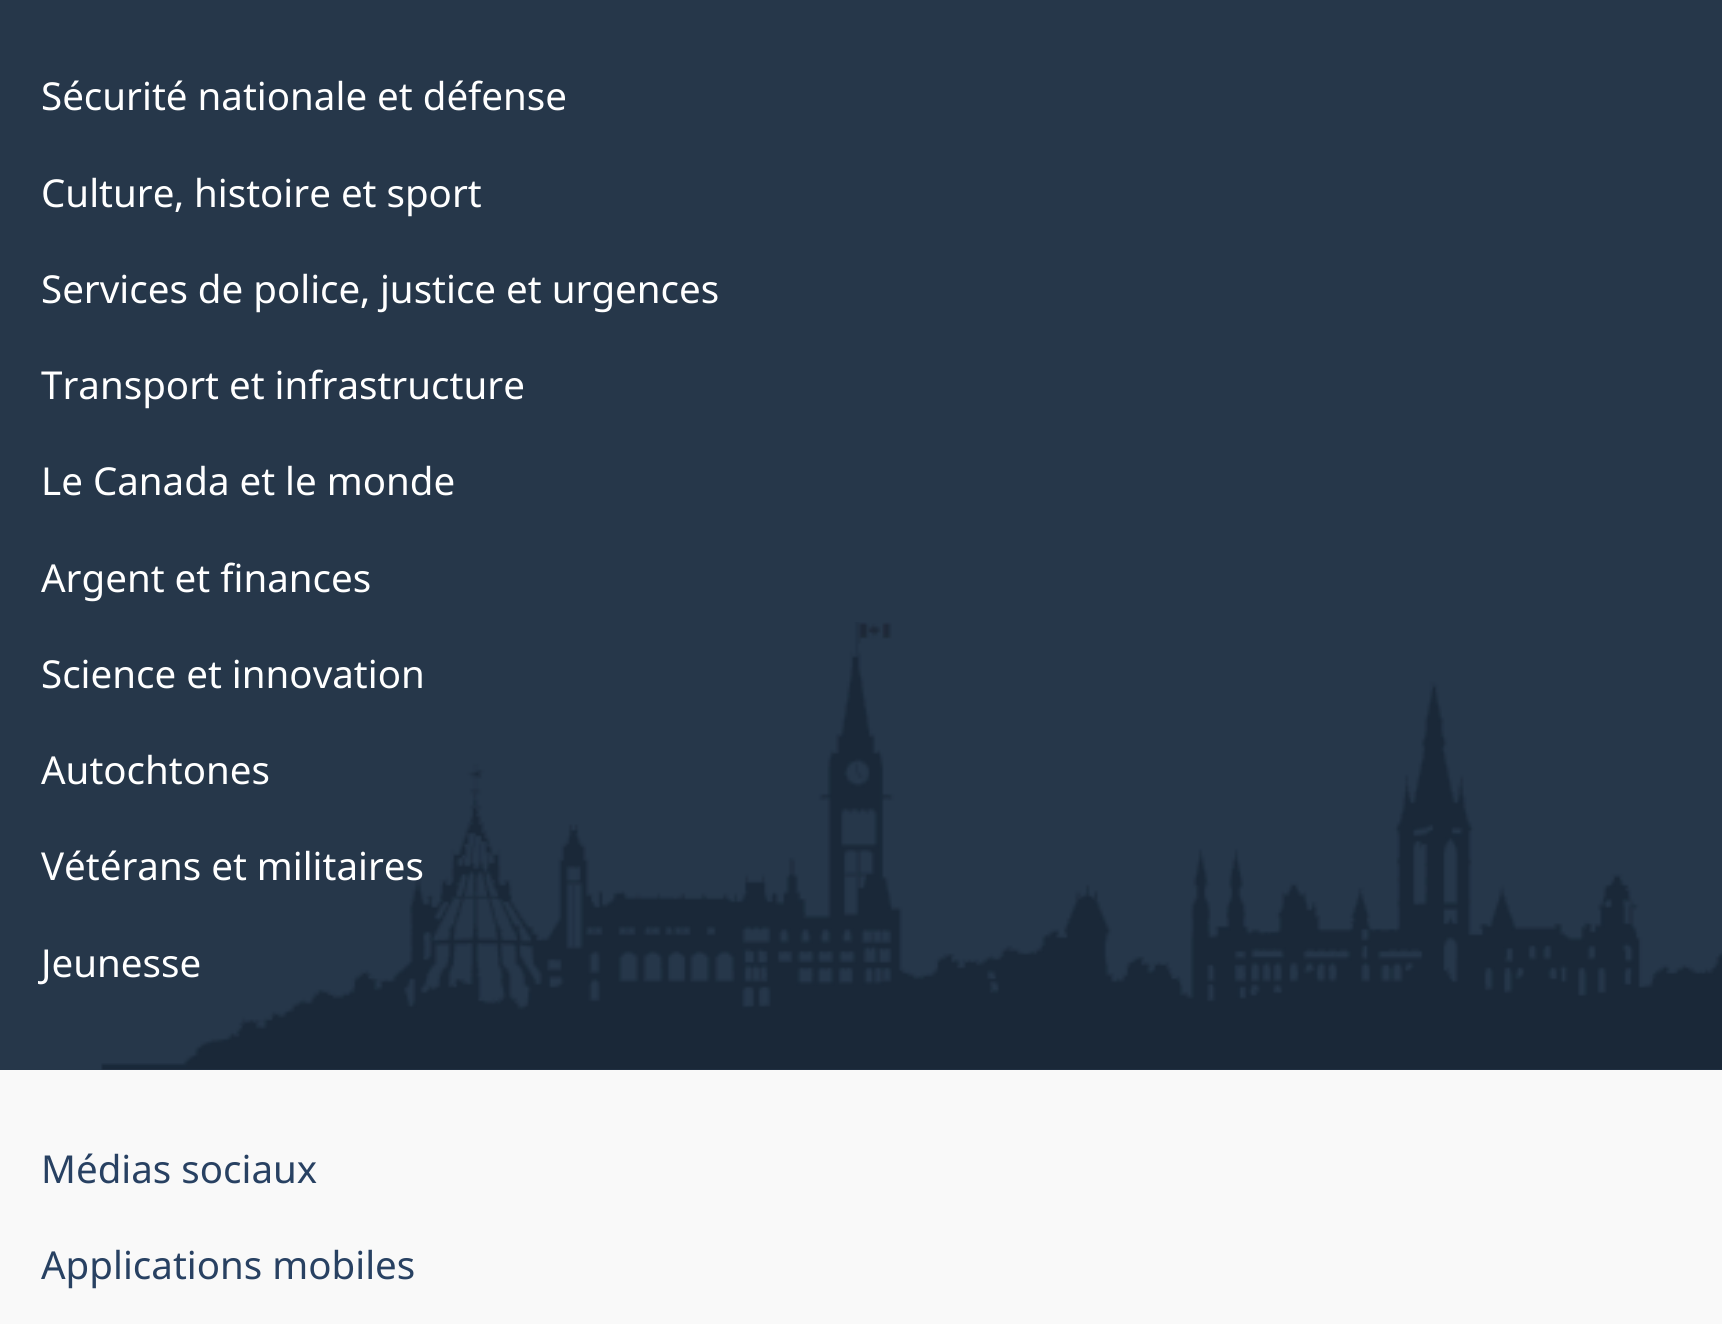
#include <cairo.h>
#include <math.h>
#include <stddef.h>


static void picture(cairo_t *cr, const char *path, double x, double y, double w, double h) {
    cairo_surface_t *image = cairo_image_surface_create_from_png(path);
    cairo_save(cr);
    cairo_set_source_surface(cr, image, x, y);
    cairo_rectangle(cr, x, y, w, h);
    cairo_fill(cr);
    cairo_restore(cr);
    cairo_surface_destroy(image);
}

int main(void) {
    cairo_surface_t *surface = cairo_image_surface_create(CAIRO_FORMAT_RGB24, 1722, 1324);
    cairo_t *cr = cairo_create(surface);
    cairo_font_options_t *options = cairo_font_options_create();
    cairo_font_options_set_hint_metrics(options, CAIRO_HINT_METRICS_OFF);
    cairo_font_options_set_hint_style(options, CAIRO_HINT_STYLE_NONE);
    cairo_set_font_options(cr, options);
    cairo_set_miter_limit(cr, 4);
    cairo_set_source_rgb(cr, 0.149, 0.216, 0.29);
    cairo_paint(cr);
    picture(cr, "img1.png", 101, 622, 1621, 448);
    cairo_select_font_face(cr, "Noto Sans", CAIRO_FONT_SLANT_NORMAL, CAIRO_FONT_WEIGHT_NORMAL);
    cairo_set_font_size(cr, 38.5);
    cairo_set_source_rgb(cr, 1, 1, 1);
    cairo_move_to(cr, 41, 110);
    cairo_show_text(cr, "Sécurité nationale et défense");
    cairo_move_to(cr, 41, 207);
    cairo_show_text(cr, "Culture, histoire et sport");
    cairo_move_to(cr, 41, 303);
    cairo_show_text(cr, "Services de police, justice et urgences");
    cairo_move_to(cr, 41, 399);
    cairo_show_text(cr, "Transport et infrastructure");
    cairo_move_to(cr, 41, 495);
    cairo_show_text(cr, "Le Canada et le monde");
    cairo_move_to(cr, 41, 592);
    cairo_show_text(cr, "Argent et finances");
    cairo_move_to(cr, 41, 688);
    cairo_show_text(cr, "Science et innovation");
    cairo_move_to(cr, 41, 784);
    cairo_show_text(cr, "Autochtones");
    cairo_move_to(cr, 41, 880);
    cairo_show_text(cr, "Vétérans et militaires");
    cairo_move_to(cr, 41, 977);
    cairo_show_text(cr, "Jeunesse");
    cairo_set_source_rgb(cr, 0.973, 0.973, 0.973);
    cairo_rectangle(cr, 0, 1070, 1722, 254);
    cairo_fill(cr);
    cairo_set_source_rgb(cr, 0.157, 0.255, 0.384);
    cairo_move_to(cr, 41, 1183);
    cairo_show_text(cr, "Médias sociaux");
    cairo_move_to(cr, 41, 1279);
    cairo_show_text(cr, "Applications mobiles");
    cairo_surface_write_to_png(surface, "page.png");
    cairo_font_options_destroy(options);
    cairo_destroy(cr);
    cairo_surface_destroy(surface);
    return 0;
}
